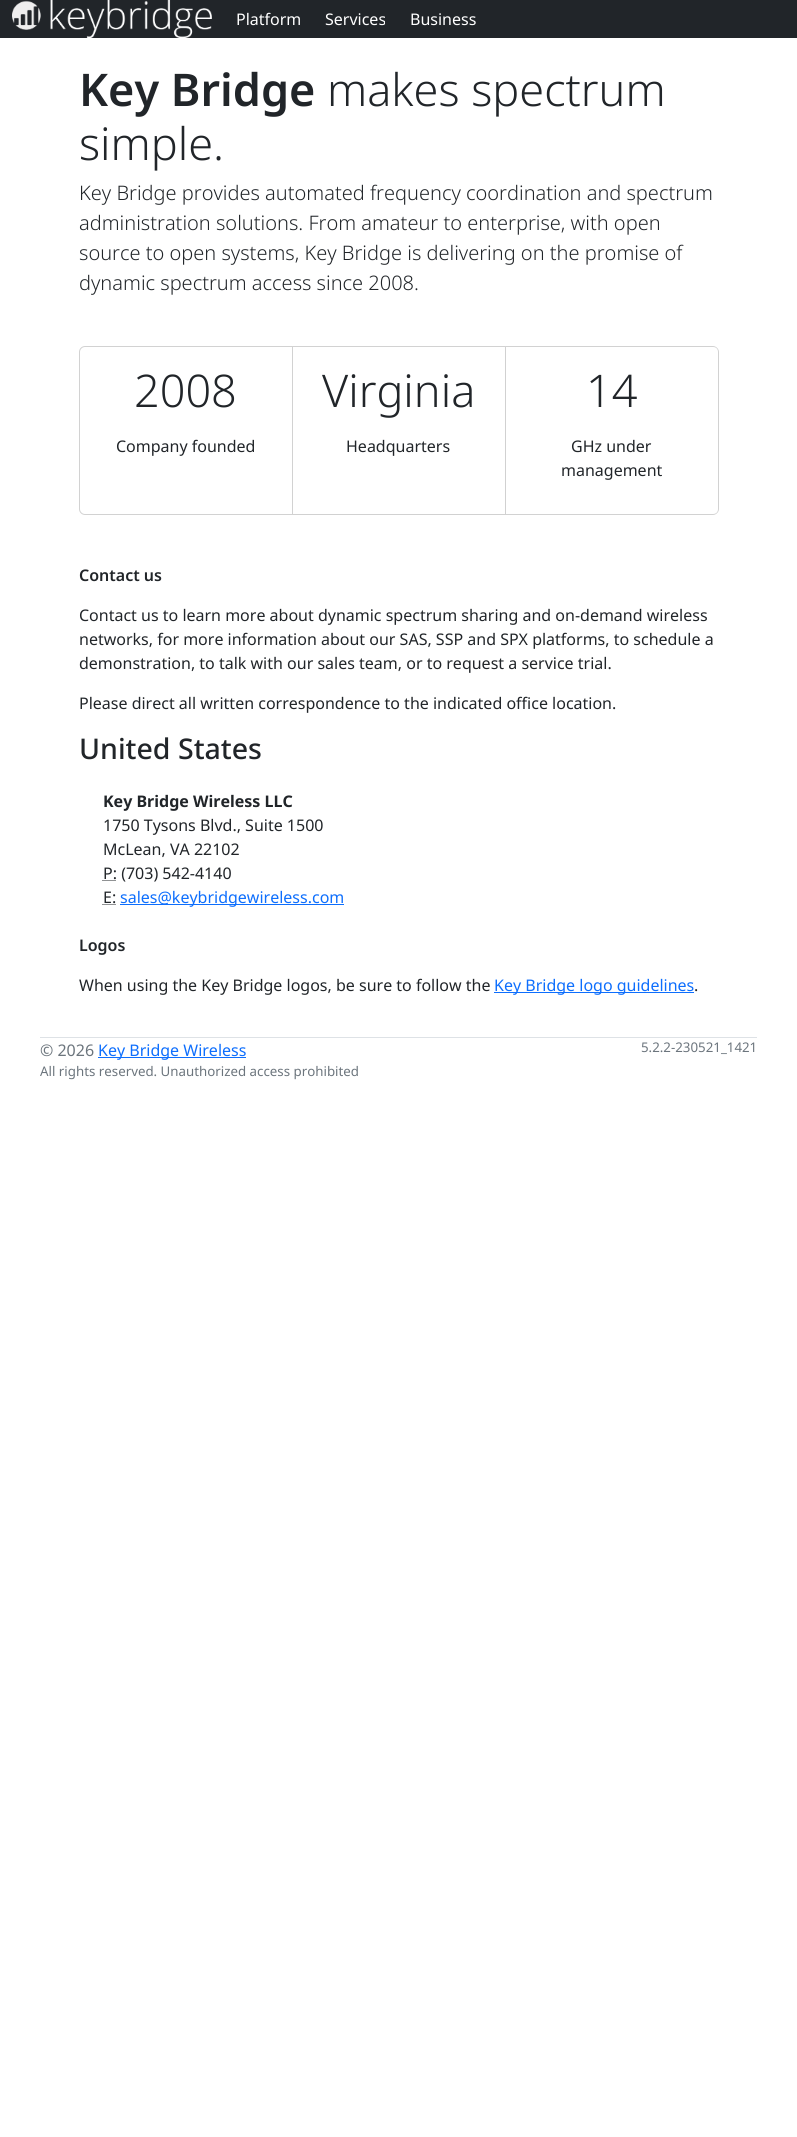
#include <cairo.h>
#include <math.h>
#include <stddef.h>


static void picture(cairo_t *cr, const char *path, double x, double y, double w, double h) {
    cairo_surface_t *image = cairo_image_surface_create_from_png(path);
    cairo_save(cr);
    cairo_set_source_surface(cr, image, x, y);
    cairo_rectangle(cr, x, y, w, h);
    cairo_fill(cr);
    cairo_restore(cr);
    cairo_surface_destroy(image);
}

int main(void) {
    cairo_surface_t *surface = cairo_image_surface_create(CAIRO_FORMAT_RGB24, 797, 2137);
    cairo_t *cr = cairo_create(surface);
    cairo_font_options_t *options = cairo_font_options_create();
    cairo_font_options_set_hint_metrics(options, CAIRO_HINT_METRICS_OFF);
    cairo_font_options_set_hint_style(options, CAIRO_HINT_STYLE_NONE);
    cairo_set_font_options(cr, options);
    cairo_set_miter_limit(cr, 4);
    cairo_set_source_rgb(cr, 1, 1, 1);
    cairo_paint(cr);
    cairo_set_source_rgb(cr, 0.129, 0.145, 0.161);
    cairo_rectangle(cr, 0, 0, 797, 38);
    cairo_fill(cr);
    picture(cr, "img1.png", 12, 0, 200, 38);
    cairo_select_font_face(cr, "Noto Sans", CAIRO_FONT_SLANT_NORMAL, CAIRO_FONT_WEIGHT_NORMAL);
    cairo_set_font_size(cr, 16);
    cairo_set_source_rgb(cr, 1, 1, 1);
    cairo_move_to(cr, 236, 25);
    cairo_show_text(cr, "Platform");
    cairo_move_to(cr, 325, 25);
    cairo_show_text(cr, "Services");
    cairo_move_to(cr, 410, 25);
    cairo_show_text(cr, "Business");
    cairo_select_font_face(cr, "Noto Sans SemiBold", CAIRO_FONT_SLANT_NORMAL, CAIRO_FONT_WEIGHT_NORMAL);
    cairo_set_font_size(cr, 45);
    cairo_set_source_rgb(cr, 0.129, 0.145, 0.161);
    cairo_move_to(cr, 79, 106);
    cairo_show_text(cr, "Key Bridge");
    cairo_select_font_face(cr, "Noto Sans Light", CAIRO_FONT_SLANT_NORMAL, CAIRO_FONT_WEIGHT_NORMAL);
    cairo_move_to(cr, 327, 106);
    cairo_show_text(cr, "makes spectrum");
    cairo_move_to(cr, 79, 160);
    cairo_show_text(cr, "simple.");
    cairo_set_font_size(cr, 20);
    cairo_move_to(cr, 79, 200);
    cairo_show_text(cr, "Key Bridge provides automated frequency coordination and spectrum");
    cairo_move_to(cr, 79, 230);
    cairo_show_text(cr, "administration solutions. From amateur to enterprise, with open");
    cairo_move_to(cr, 79, 260);
    cairo_show_text(cr, "source to open systems, Key Bridge is delivering on the promise of");
    cairo_move_to(cr, 79, 290);
    cairo_show_text(cr, "dynamic spectrum access since 2008.");
    cairo_new_path(cr);
    cairo_move_to(cr, 85, 346.5);
    cairo_line_to(cr, 292.5, 346.5);
    cairo_line_to(cr, 292.5, 514.5);
    cairo_line_to(cr, 85, 514.5);
    cairo_curve_to(cr, 82, 514.5, 79.5, 512, 79.5, 509);
    cairo_line_to(cr, 79.5, 352);
    cairo_curve_to(cr, 79.5, 349, 82, 346.5, 85, 346.5);
    cairo_close_path(cr);
    cairo_set_source_rgb(cr, 0.824, 0.824, 0.824);
    cairo_set_line_width(cr, 1);
    cairo_stroke(cr);
    cairo_set_font_size(cr, 45);
    cairo_set_source_rgb(cr, 0.129, 0.145, 0.161);
    cairo_move_to(cr, 134, 407);
    cairo_show_text(cr, "2008");
    cairo_select_font_face(cr, "Noto Sans", CAIRO_FONT_SLANT_NORMAL, CAIRO_FONT_WEIGHT_NORMAL);
    cairo_set_font_size(cr, 16);
    cairo_move_to(cr, 116, 452);
    cairo_show_text(cr, "Company founded");
    cairo_set_source_rgb(cr, 0.824, 0.824, 0.824);
    cairo_new_path(cr);
    cairo_move_to(cr, 293, 346);
    cairo_line_to(cr, 506, 346);
    cairo_line_to(cr, 505, 347);
    cairo_line_to(cr, 293, 347);
    cairo_close_path(cr);
    cairo_fill(cr);
    cairo_set_source_rgba(cr, 0, 0, 0, 0.18);
    cairo_new_path(cr);
    cairo_move_to(cr, 506, 346);
    cairo_line_to(cr, 506, 515);
    cairo_line_to(cr, 505, 514);
    cairo_line_to(cr, 505, 347);
    cairo_close_path(cr);
    cairo_fill(cr);
    cairo_new_path(cr);
    cairo_move_to(cr, 506, 515);
    cairo_line_to(cr, 293, 515);
    cairo_line_to(cr, 293, 514);
    cairo_line_to(cr, 505, 514);
    cairo_close_path(cr);
    cairo_fill(cr);
    cairo_select_font_face(cr, "Noto Sans Light", CAIRO_FONT_SLANT_NORMAL, CAIRO_FONT_WEIGHT_NORMAL);
    cairo_set_font_size(cr, 45);
    cairo_set_source_rgb(cr, 0.129, 0.145, 0.161);
    cairo_move_to(cr, 322, 407);
    cairo_show_text(cr, "Virginia");
    cairo_select_font_face(cr, "Noto Sans", CAIRO_FONT_SLANT_NORMAL, CAIRO_FONT_WEIGHT_NORMAL);
    cairo_set_font_size(cr, 16);
    cairo_move_to(cr, 346, 452);
    cairo_show_text(cr, "Headquarters");
    cairo_set_source_rgb(cr, 0.824, 0.824, 0.824);
    cairo_set_fill_rule(cr, CAIRO_FILL_RULE_EVEN_ODD);
    cairo_new_path(cr);
    cairo_move_to(cr, 506, 346);
    cairo_line_to(cr, 713, 346);
    cairo_curve_to(cr, 716, 346, 719, 349, 719, 352);
    cairo_line_to(cr, 719, 509);
    cairo_curve_to(cr, 719, 512, 716, 515, 713, 515);
    cairo_line_to(cr, 506, 515);
    cairo_close_path(cr);
    cairo_move_to(cr, 506, 347);
    cairo_line_to(cr, 713, 347);
    cairo_curve_to(cr, 716, 347, 718, 349, 718, 352);
    cairo_line_to(cr, 718, 509);
    cairo_curve_to(cr, 718, 512, 716, 514, 713, 514);
    cairo_line_to(cr, 506, 514);
    cairo_close_path(cr);
    cairo_fill(cr);
    cairo_select_font_face(cr, "Noto Sans Light", CAIRO_FONT_SLANT_NORMAL, CAIRO_FONT_WEIGHT_NORMAL);
    cairo_set_font_size(cr, 45);
    cairo_set_source_rgb(cr, 0.129, 0.145, 0.161);
    cairo_move_to(cr, 586, 407);
    cairo_show_text(cr, "14");
    cairo_select_font_face(cr, "Noto Sans", CAIRO_FONT_SLANT_NORMAL, CAIRO_FONT_WEIGHT_NORMAL);
    cairo_set_font_size(cr, 16);
    cairo_move_to(cr, 571, 452);
    cairo_show_text(cr, "GHz under");
    cairo_move_to(cr, 561, 476);
    cairo_show_text(cr, "management");
    cairo_select_font_face(cr, "Noto Sans SemiBold", CAIRO_FONT_SLANT_NORMAL, CAIRO_FONT_WEIGHT_NORMAL);
    cairo_move_to(cr, 79, 581);
    cairo_show_text(cr, "Contact us");
    cairo_select_font_face(cr, "Noto Sans", CAIRO_FONT_SLANT_NORMAL, CAIRO_FONT_WEIGHT_NORMAL);
    cairo_move_to(cr, 79, 621);
    cairo_show_text(cr, "Contact us to learn more about dynamic spectrum sharing and on-demand wireless");
    cairo_move_to(cr, 79, 645);
    cairo_show_text(cr, "networks, for more information about our SAS, SSP and SPX platforms, to schedule a");
    cairo_move_to(cr, 79, 669);
    cairo_show_text(cr, "demonstration, to talk with our sales team, or to request a service trial.");
    cairo_move_to(cr, 79, 709);
    cairo_show_text(cr, "Please direct all written correspondence to the indicated office location.");
    cairo_select_font_face(cr, "Noto Sans Medium", CAIRO_FONT_SLANT_NORMAL, CAIRO_FONT_WEIGHT_NORMAL);
    cairo_set_font_size(cr, 28.5);
    cairo_move_to(cr, 79, 759);
    cairo_show_text(cr, "United States");
    cairo_select_font_face(cr, "Noto Sans", CAIRO_FONT_SLANT_NORMAL, CAIRO_FONT_WEIGHT_BOLD);
    cairo_set_font_size(cr, 16);
    cairo_move_to(cr, 103, 807);
    cairo_show_text(cr, "Key Bridge Wireless LLC");
    cairo_select_font_face(cr, "Noto Sans", CAIRO_FONT_SLANT_NORMAL, CAIRO_FONT_WEIGHT_NORMAL);
    cairo_move_to(cr, 103, 831);
    cairo_show_text(cr, "1750 Tysons Blvd., Suite 1500");
    cairo_move_to(cr, 103, 855);
    cairo_show_text(cr, "McLean, VA 22102");
    cairo_new_path(cr);
    cairo_move_to(cr, 102.5, 880.5);
    cairo_line_to(cr, 116.5, 880.5);
    cairo_set_dash(cr, (double[]){1, 1}, 2, 0);
    cairo_stroke(cr);
    cairo_move_to(cr, 103, 879);
    cairo_show_text(cr, "P: (703) 542-4140");
    cairo_move_to(cr, 103, 903);
    cairo_show_text(cr, "E:");
    cairo_new_path(cr);
    cairo_move_to(cr, 102.5, 904.5);
    cairo_line_to(cr, 115.5, 904.5);
    cairo_stroke(cr);
    cairo_set_source_rgb(cr, 0.051, 0.431, 0.992);
    cairo_rectangle(cr, 120, 904, 224, 1);
    cairo_fill(cr);
    cairo_move_to(cr, 120, 903);
    cairo_show_text(cr, "sales@keybridgewireless.com");
    cairo_select_font_face(cr, "Noto Sans SemiBold", CAIRO_FONT_SLANT_NORMAL, CAIRO_FONT_WEIGHT_NORMAL);
    cairo_set_source_rgb(cr, 0.129, 0.145, 0.161);
    cairo_move_to(cr, 79, 951);
    cairo_show_text(cr, "Logos");
    cairo_select_font_face(cr, "Noto Sans", CAIRO_FONT_SLANT_NORMAL, CAIRO_FONT_WEIGHT_NORMAL);
    cairo_move_to(cr, 79, 991);
    cairo_show_text(cr, "When using the Key Bridge logos, be sure to follow the");
    cairo_set_source_rgb(cr, 0.051, 0.431, 0.992);
    cairo_rectangle(cr, 494, 992, 200, 1);
    cairo_fill(cr);
    cairo_move_to(cr, 494, 991);
    cairo_show_text(cr, "Key Bridge logo guidelines");
    cairo_set_source_rgb(cr, 0.129, 0.145, 0.161);
    cairo_move_to(cr, 694, 991);
    cairo_show_text(cr, ".");
    cairo_set_source_rgb(cr, 0.871, 0.886, 0.902);
    cairo_rectangle(cr, 40, 1037, 717, 1);
    cairo_fill(cr);
    cairo_set_source_rgb(cr, 0.424, 0.459, 0.49);
    cairo_move_to(cr, 40, 1056);
    cairo_show_text(cr, "© 2026");
    cairo_set_source_rgb(cr, 0.051, 0.431, 0.992);
    cairo_rectangle(cr, 98, 1057, 148, 1);
    cairo_fill(cr);
    cairo_move_to(cr, 98, 1056);
    cairo_show_text(cr, "Key Bridge Wireless");
    cairo_set_font_size(cr, 13.3);
    cairo_set_source_rgb(cr, 0.424, 0.459, 0.49);
    cairo_move_to(cr, 641, 1052);
    cairo_show_text(cr, "5.2.2-230521_1421");
    cairo_move_to(cr, 40, 1076);
    cairo_show_text(cr, "All rights reserved. Unauthorized access prohibited");
    cairo_surface_write_to_png(surface, "page.png");
    cairo_font_options_destroy(options);
    cairo_destroy(cr);
    cairo_surface_destroy(surface);
    return 0;
}
